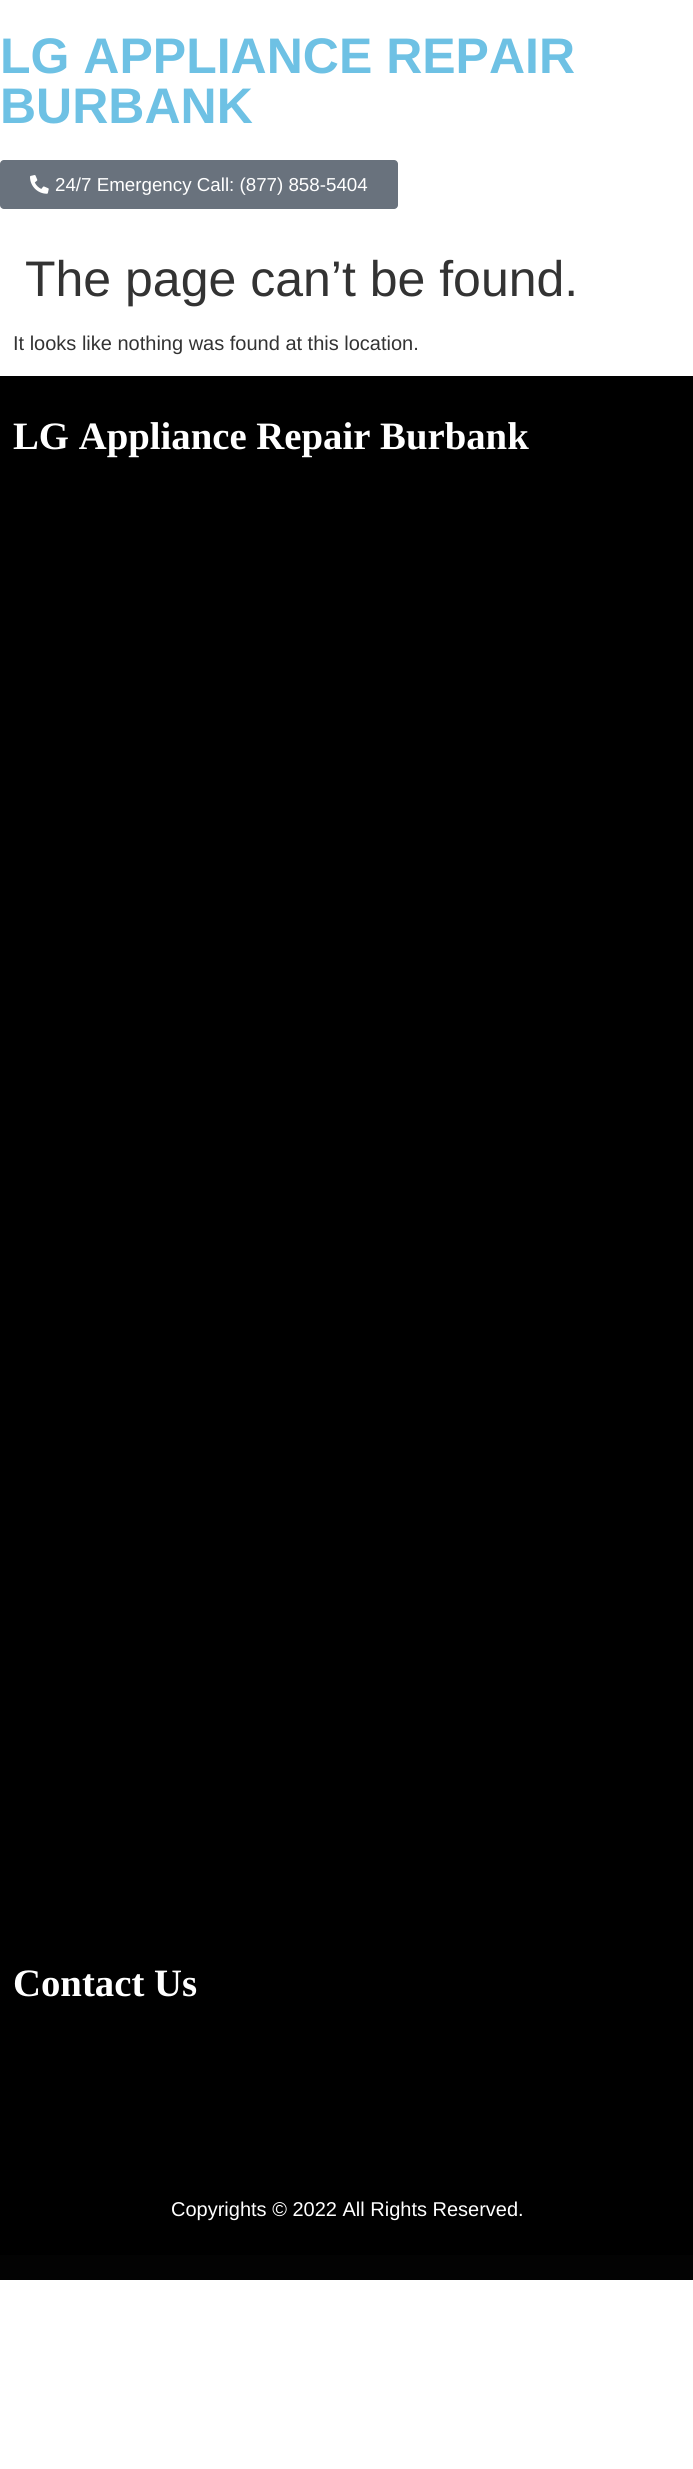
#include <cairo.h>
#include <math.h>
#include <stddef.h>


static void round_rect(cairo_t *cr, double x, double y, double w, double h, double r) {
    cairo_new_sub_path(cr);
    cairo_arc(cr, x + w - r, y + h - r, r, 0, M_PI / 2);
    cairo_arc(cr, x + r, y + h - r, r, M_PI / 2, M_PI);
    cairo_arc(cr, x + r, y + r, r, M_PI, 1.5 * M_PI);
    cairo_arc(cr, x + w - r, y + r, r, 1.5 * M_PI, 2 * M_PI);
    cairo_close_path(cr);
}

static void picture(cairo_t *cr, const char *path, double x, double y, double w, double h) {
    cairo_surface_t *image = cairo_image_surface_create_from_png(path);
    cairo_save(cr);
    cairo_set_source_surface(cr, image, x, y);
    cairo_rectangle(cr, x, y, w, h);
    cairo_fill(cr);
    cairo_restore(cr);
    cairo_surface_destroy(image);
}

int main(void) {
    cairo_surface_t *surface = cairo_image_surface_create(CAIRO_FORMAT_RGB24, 693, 2469);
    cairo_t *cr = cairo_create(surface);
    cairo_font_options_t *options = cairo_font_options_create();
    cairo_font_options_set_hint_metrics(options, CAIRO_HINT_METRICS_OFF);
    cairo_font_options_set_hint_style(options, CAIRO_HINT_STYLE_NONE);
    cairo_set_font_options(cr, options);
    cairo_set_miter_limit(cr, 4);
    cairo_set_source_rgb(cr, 1, 1, 1);
    cairo_paint(cr);
    cairo_select_font_face(cr, "Liberation Sans", CAIRO_FONT_SLANT_NORMAL, CAIRO_FONT_WEIGHT_BOLD);
    cairo_set_font_size(cr, 50);
    cairo_set_source_rgb(cr, 0.431, 0.757, 0.894);
    cairo_move_to(cr, 0, 73);
    cairo_show_text(cr, "LG APPLIANCE REPAIR");
    cairo_move_to(cr, 0, 123);
    cairo_show_text(cr, "BURBANK");
    cairo_set_source_rgb(cr, 0.412, 0.447, 0.49);
    round_rect(cr, 0, 160, 398, 49, 4);
    cairo_fill(cr);
    picture(cr, "img1.png", 30, 175, 19, 19);
    cairo_select_font_face(cr, "Liberation Sans", CAIRO_FONT_SLANT_NORMAL, CAIRO_FONT_WEIGHT_NORMAL);
    cairo_set_font_size(cr, 18.75);
    cairo_set_source_rgb(cr, 1, 1, 1);
    cairo_move_to(cr, 55, 191);
    cairo_show_text(cr, "24/7 Emergency Call: (877) 858-5404");
    cairo_set_font_size(cr, 50);
    cairo_set_source_rgb(cr, 0.2, 0.2, 0.2);
    cairo_move_to(cr, 25, 296);
    cairo_show_text(cr, "The page can’t be found.");
    cairo_set_font_size(cr, 20);
    cairo_move_to(cr, 13, 350);
    cairo_show_text(cr, "It looks like nothing was found at this location.");
    cairo_set_source_rgb(cr, 0, 0, 0);
    cairo_rectangle(cr, 0, 376, 693, 1879);
    cairo_fill(cr);
    cairo_select_font_face(cr, "Liberation Serif", CAIRO_FONT_SLANT_NORMAL, CAIRO_FONT_WEIGHT_BOLD);
    cairo_set_font_size(cr, 38.75);
    cairo_set_source_rgb(cr, 1, 1, 1);
    cairo_move_to(cr, 13, 449);
    cairo_show_text(cr, "LG Appliance Repair Burbank");
    cairo_move_to(cr, 13, 1996);
    cairo_show_text(cr, "Contact Us");
    cairo_select_font_face(cr, "Liberation Sans", CAIRO_FONT_SLANT_NORMAL, CAIRO_FONT_WEIGHT_NORMAL);
    cairo_set_font_size(cr, 20);
    cairo_move_to(cr, 171, 2216);
    cairo_show_text(cr, "Copyrights © 2022 All Rights Reserved.");
    cairo_set_source_rgb(cr, 0.012, 0.012, 0.012);
    cairo_rectangle(cr, 0, 2255, 693, 25);
    cairo_fill(cr);
    cairo_surface_write_to_png(surface, "page.png");
    cairo_font_options_destroy(options);
    cairo_destroy(cr);
    cairo_surface_destroy(surface);
    return 0;
}
